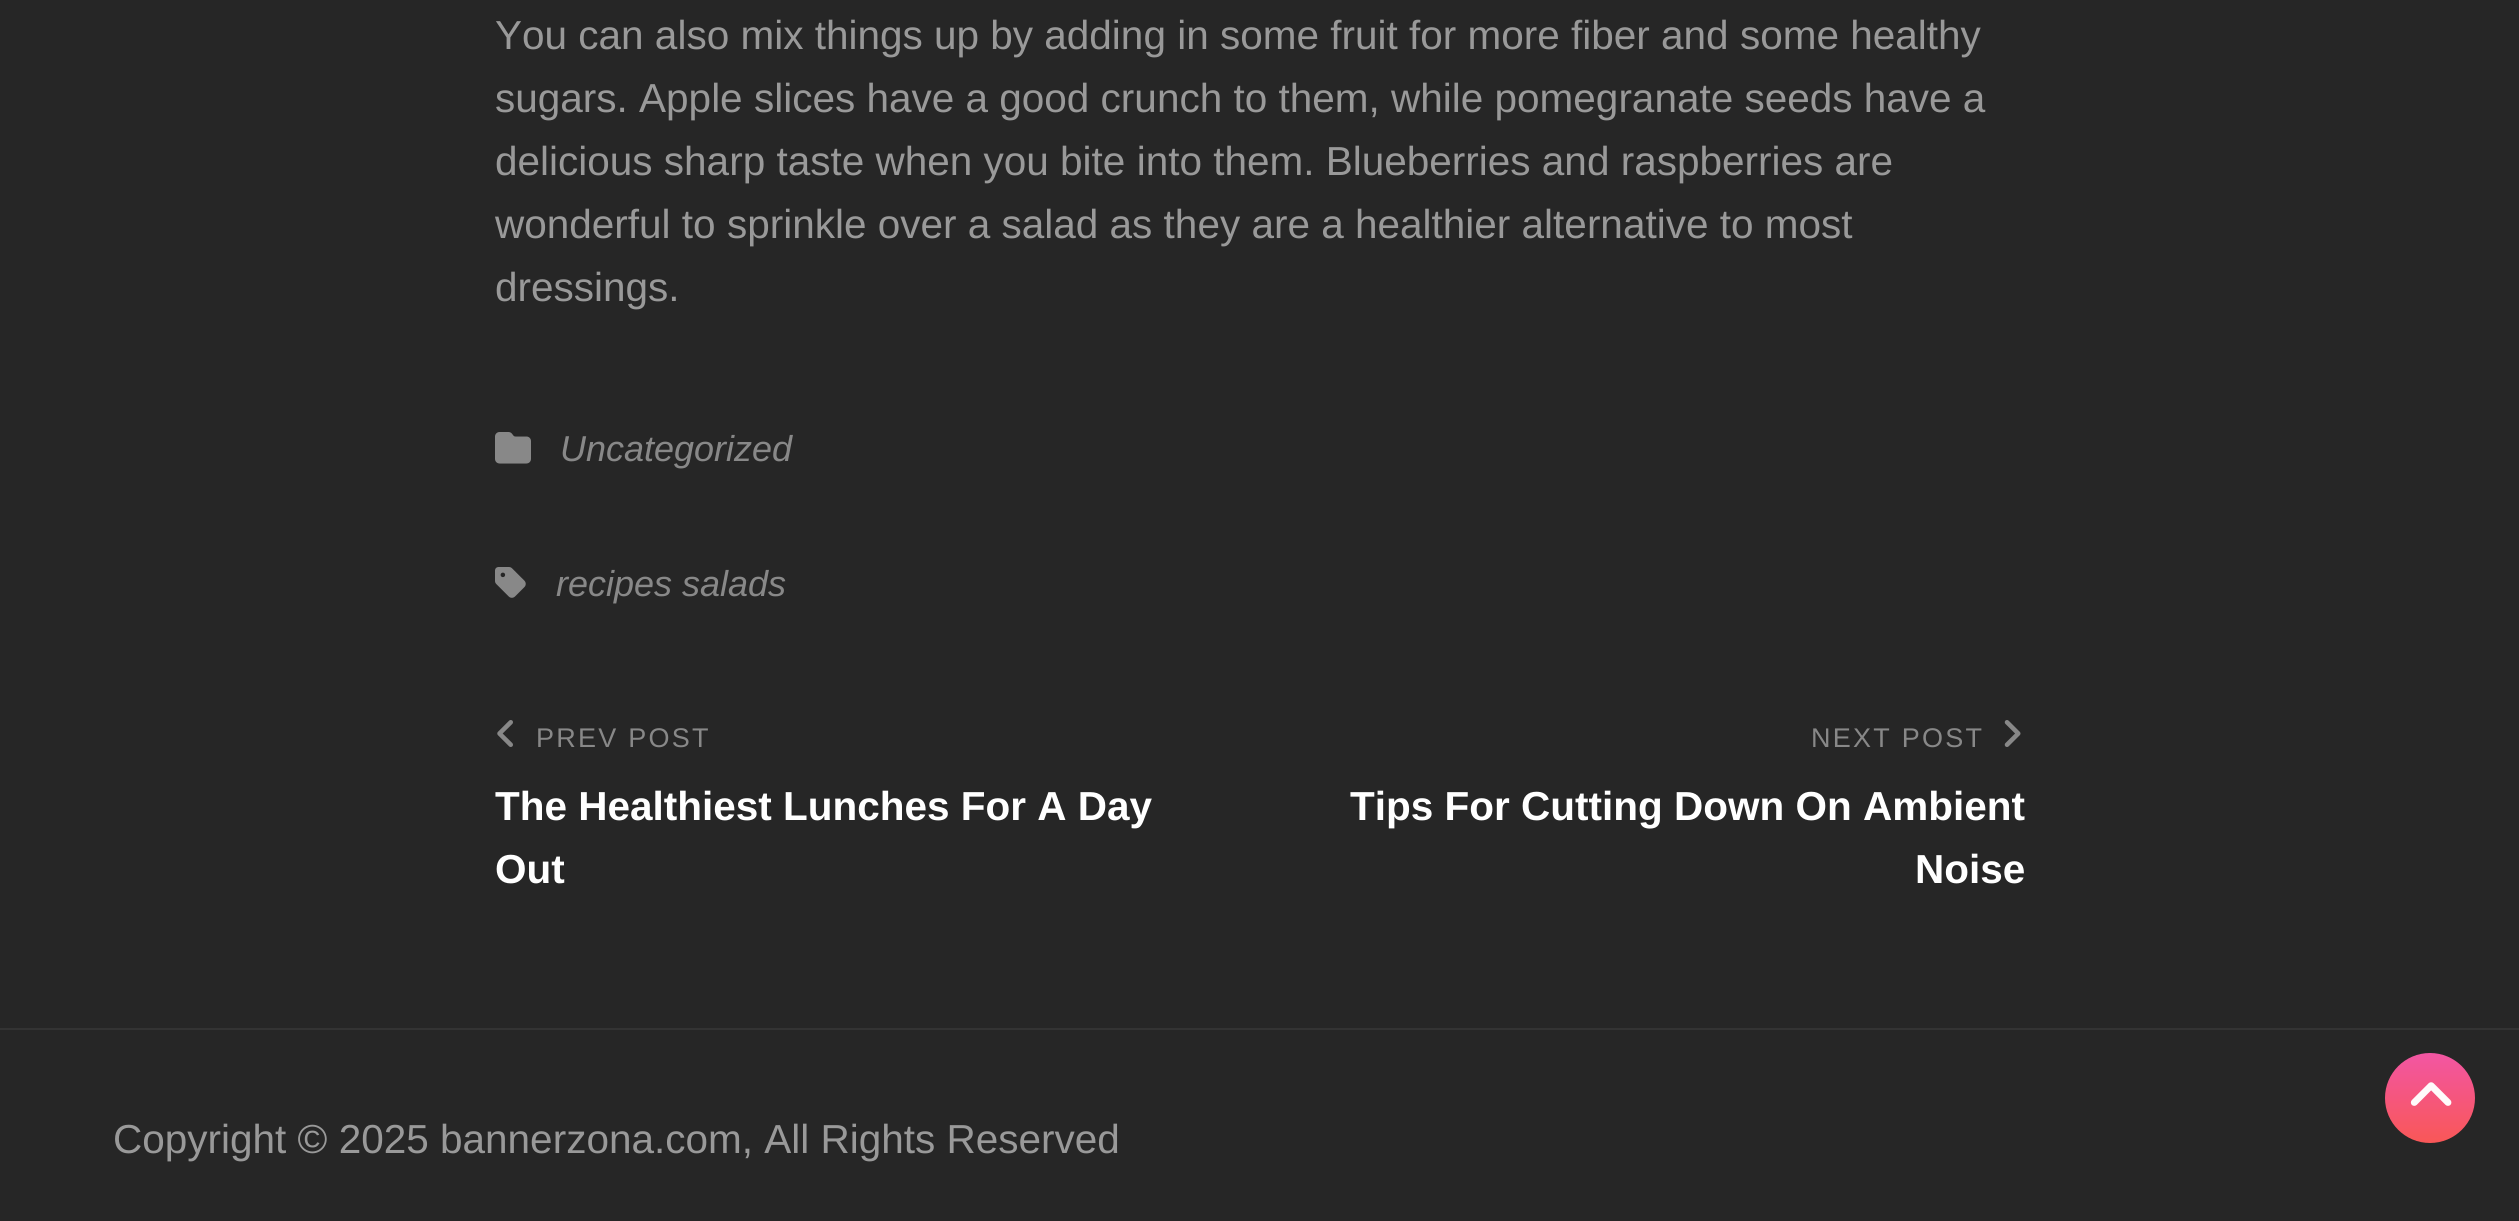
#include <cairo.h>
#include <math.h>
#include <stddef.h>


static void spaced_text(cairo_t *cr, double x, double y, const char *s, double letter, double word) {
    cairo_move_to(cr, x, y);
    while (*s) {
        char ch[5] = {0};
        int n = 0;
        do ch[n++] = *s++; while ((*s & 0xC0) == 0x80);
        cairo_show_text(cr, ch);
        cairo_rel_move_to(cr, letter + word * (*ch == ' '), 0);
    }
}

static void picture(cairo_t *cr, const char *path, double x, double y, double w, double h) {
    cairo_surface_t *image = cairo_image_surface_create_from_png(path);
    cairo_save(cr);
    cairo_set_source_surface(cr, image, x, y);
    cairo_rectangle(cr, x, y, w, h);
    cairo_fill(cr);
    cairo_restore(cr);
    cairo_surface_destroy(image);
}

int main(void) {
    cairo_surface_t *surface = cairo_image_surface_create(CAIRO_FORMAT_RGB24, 2519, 1221);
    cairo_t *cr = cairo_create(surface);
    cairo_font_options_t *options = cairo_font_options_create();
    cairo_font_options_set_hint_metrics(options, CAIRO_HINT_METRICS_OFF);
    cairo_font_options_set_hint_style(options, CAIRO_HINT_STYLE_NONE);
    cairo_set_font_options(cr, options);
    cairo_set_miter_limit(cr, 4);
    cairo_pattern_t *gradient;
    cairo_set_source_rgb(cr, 0.149, 0.149, 0.149);
    cairo_paint(cr);
    cairo_set_source_rgb(cr, 0.2, 0.2, 0.2);
    cairo_rectangle(cr, 0, 1028, 2519, 2);
    cairo_fill(cr);
    cairo_select_font_face(cr, "Liberation Sans", CAIRO_FONT_SLANT_NORMAL, CAIRO_FONT_WEIGHT_NORMAL);
    cairo_set_font_size(cr, 40.5);
    cairo_set_source_rgb(cr, 0.6, 0.6, 0.6);
    cairo_move_to(cr, 495, 49);
    cairo_show_text(cr, "You can also mix things up by adding in some fruit for more fiber and some healthy");
    cairo_move_to(cr, 495, 112);
    cairo_show_text(cr, "sugars. Apple slices have a good crunch to them, while pomegranate seeds have a");
    cairo_move_to(cr, 495, 175);
    cairo_show_text(cr, "delicious sharp taste when you bite into them. Blueberries and raspberries are");
    cairo_move_to(cr, 495, 238);
    cairo_show_text(cr, "wonderful to sprinkle over a salad as they are a healthier alternative to most");
    cairo_move_to(cr, 495, 301);
    cairo_show_text(cr, "dressings.");
    picture(cr, "img1.png", 495, 432, 36, 32);
    cairo_select_font_face(cr, "Liberation Sans", CAIRO_FONT_SLANT_ITALIC, CAIRO_FONT_WEIGHT_NORMAL);
    cairo_set_font_size(cr, 36);
    cairo_set_source_rgb(cr, 0.533, 0.533, 0.533);
    cairo_move_to(cr, 560, 461);
    cairo_show_text(cr, "Uncategorized");
    picture(cr, "img2.png", 495, 567, 31, 31);
    cairo_move_to(cr, 556, 596);
    cairo_show_text(cr, "recipes salads");
    picture(cr, "img3.png", 497, 720, 16, 27);
    cairo_select_font_face(cr, "Liberation Sans", CAIRO_FONT_SLANT_NORMAL, CAIRO_FONT_WEIGHT_NORMAL);
    cairo_set_font_size(cr, 27);
    spaced_text(cr, 536, 747, "PREV POST", 2.25, 0);
    cairo_select_font_face(cr, "Liberation Sans", CAIRO_FONT_SLANT_NORMAL, CAIRO_FONT_WEIGHT_BOLD);
    cairo_set_font_size(cr, 40.5);
    cairo_set_source_rgb(cr, 1, 1, 1);
    cairo_move_to(cr, 495, 820);
    cairo_show_text(cr, "The Healthiest Lunches For A Day");
    cairo_move_to(cr, 495, 883);
    cairo_show_text(cr, "Out");
    cairo_select_font_face(cr, "Liberation Sans", CAIRO_FONT_SLANT_NORMAL, CAIRO_FONT_WEIGHT_NORMAL);
    cairo_set_font_size(cr, 27);
    cairo_set_source_rgb(cr, 0.533, 0.533, 0.533);
    spaced_text(cr, 1811, 747, "NEXT POST", 2.25, 0);
    picture(cr, "img4.png", 2004, 720, 17, 27);
    cairo_select_font_face(cr, "Liberation Sans", CAIRO_FONT_SLANT_NORMAL, CAIRO_FONT_WEIGHT_BOLD);
    cairo_set_font_size(cr, 40.5);
    cairo_set_source_rgb(cr, 1, 1, 1);
    cairo_move_to(cr, 1350, 820);
    cairo_show_text(cr, "Tips For Cutting Down On Ambient");
    cairo_move_to(cr, 1915, 883);
    cairo_show_text(cr, "Noise");
    cairo_select_font_face(cr, "Liberation Sans", CAIRO_FONT_SLANT_NORMAL, CAIRO_FONT_WEIGHT_NORMAL);
    cairo_set_source_rgb(cr, 0.6, 0.6, 0.6);
    cairo_move_to(cr, 113, 1153);
    cairo_show_text(cr, "Copyright © 2025 bannerzona.com, All Rights Reserved");
    gradient = cairo_pattern_create_linear(2430, 1053, 2430, 1143);
    cairo_pattern_add_color_stop_rgba(gradient, 0, 0.949, 0.337, 0.639, 1);
    cairo_pattern_add_color_stop_rgba(gradient, 1, 0.976, 0.341, 0.341, 1);
    cairo_set_source(cr, gradient);
    cairo_pattern_destroy(gradient);
    cairo_new_path(cr);
    cairo_arc(cr, 2430, 1098, 45, 0, 2 * M_PI);
    cairo_fill(cr);
    picture(cr, "img5.png", 2410, 1082, 42, 24);
    cairo_surface_write_to_png(surface, "page.png");
    cairo_font_options_destroy(options);
    cairo_destroy(cr);
    cairo_surface_destroy(surface);
    return 0;
}
